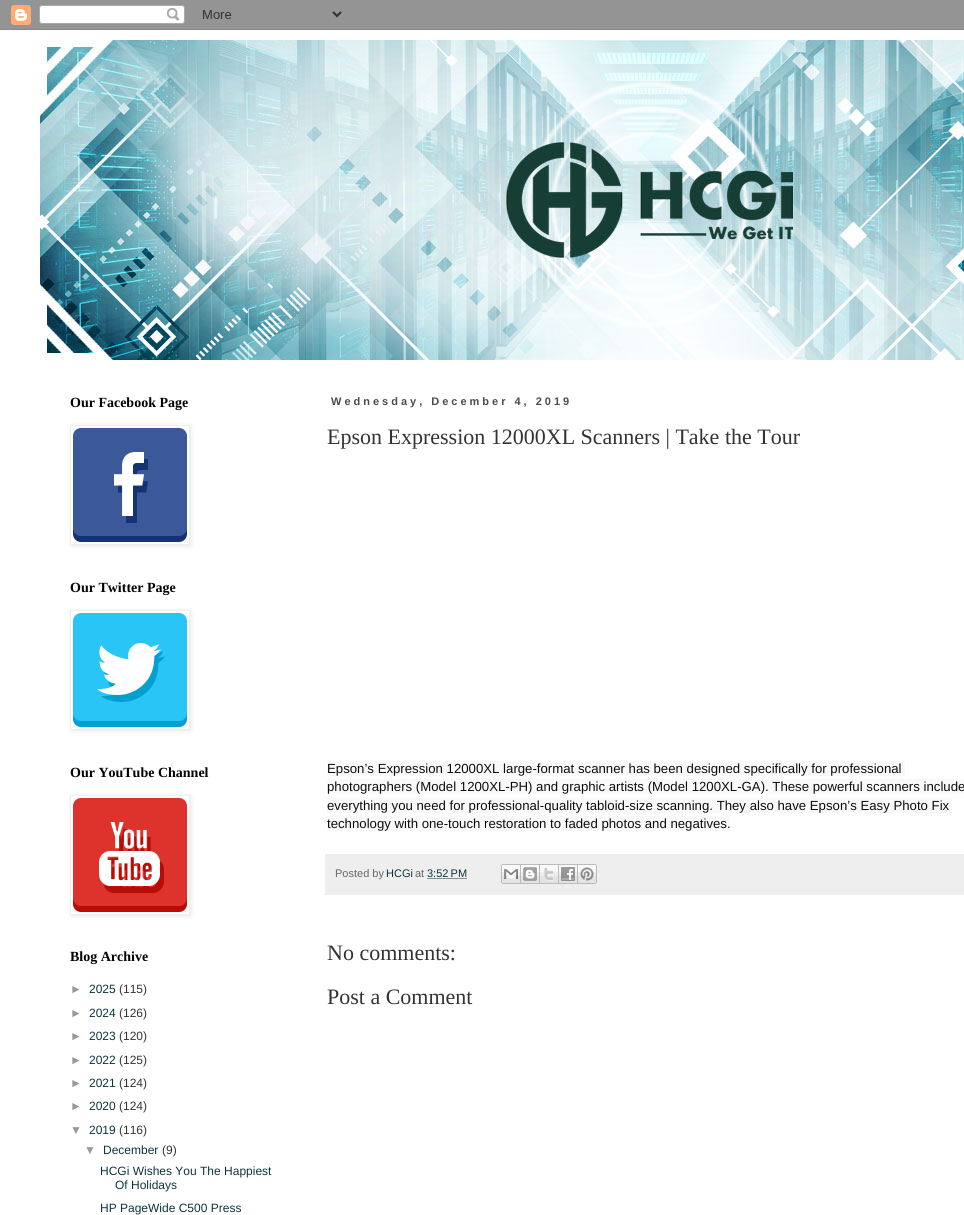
#include <cairo.h>
#include <math.h>
#include <stddef.h>


static void spaced_text(cairo_t *cr, double x, double y, const char *s, double letter, double word) {
    cairo_move_to(cr, x, y);
    while (*s) {
        char ch[5] = {0};
        int n = 0;
        do ch[n++] = *s++; while ((*s & 0xC0) == 0x80);
        cairo_show_text(cr, ch);
        cairo_rel_move_to(cr, letter + word * (*ch == ' '), 0);
    }
}

static void round_rect(cairo_t *cr, double x, double y, double w, double h, double r) {
    cairo_new_sub_path(cr);
    cairo_arc(cr, x + w - r, y + h - r, r, 0, M_PI / 2);
    cairo_arc(cr, x + r, y + h - r, r, M_PI / 2, M_PI);
    cairo_arc(cr, x + r, y + r, r, M_PI, 1.5 * M_PI);
    cairo_arc(cr, x + w - r, y + r, r, 1.5 * M_PI, 2 * M_PI);
    cairo_close_path(cr);
}

static void shadow(cairo_t *cr, double x, double y, double w, double h, double r, double blur, double alpha) {
    cairo_push_group_with_content(cr, CAIRO_CONTENT_ALPHA);
    cairo_set_operator(cr, CAIRO_OPERATOR_SOURCE);
    for (int i = 15; i >= -15 && fmin(w, h) + blur * i / 3 > 0; i -= 2) {
        double e = blur * i / 6;
        cairo_set_source_rgba(cr, 0, 0, 0, alpha * erfc((i - 1) / 8.5) / 2);
        round_rect(cr, x - e, y - e, w + 2 * e, h + 2 * e, fmax(0, fmin(r + e + blur * .6, fmin(w, h) / 2 + e)));
        cairo_fill(cr);
    }
    cairo_pattern_t *soft = cairo_pop_group(cr);
    cairo_mask(cr, soft);
    cairo_pattern_destroy(soft);
}

static void picture(cairo_t *cr, const char *path, double x, double y, double w, double h) {
    cairo_surface_t *image = cairo_image_surface_create_from_png(path);
    cairo_save(cr);
    cairo_set_source_surface(cr, image, x, y);
    cairo_rectangle(cr, x, y, w, h);
    cairo_fill(cr);
    cairo_restore(cr);
    cairo_surface_destroy(image);
}

int main(void) {
    cairo_surface_t *surface = cairo_image_surface_create(CAIRO_FORMAT_RGB24, 964, 1215);
    cairo_t *cr = cairo_create(surface);
    cairo_font_options_t *options = cairo_font_options_create();
    cairo_font_options_set_hint_metrics(options, CAIRO_HINT_METRICS_OFF);
    cairo_font_options_set_hint_style(options, CAIRO_HINT_STYLE_NONE);
    cairo_set_font_options(cr, options);
    cairo_set_miter_limit(cr, 4);
    cairo_set_source_rgb(cr, 0.298, 0.298, 0.298);
    cairo_paint(cr);
    picture(cr, "img1.png", 0, 0, 964, 30);
    cairo_set_source_rgb(cr, 1, 1, 1);
    cairo_rectangle(cr, 0, 30, 964, 1185);
    cairo_fill(cr);
    picture(cr, "img2.png", 40, 40, 924, 320);
    cairo_select_font_face(cr, "Liberation Serif", CAIRO_FONT_SLANT_NORMAL, CAIRO_FONT_WEIGHT_BOLD);
    cairo_set_font_size(cr, 14);
    cairo_set_source_rgb(cr, 0, 0, 0);
    cairo_move_to(cr, 70, 407);
    cairo_show_text(cr, "Our Facebook Page");
    cairo_save(cr);
    cairo_set_fill_rule(cr, CAIRO_FILL_RULE_EVEN_ODD);
    cairo_new_path(cr);
    cairo_move_to(cr, 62, 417);
    cairo_line_to(cr, 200, 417);
    cairo_line_to(cr, 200, 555);
    cairo_line_to(cr, 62, 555);
    cairo_close_path(cr);
    cairo_move_to(cr, 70, 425);
    cairo_line_to(cr, 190, 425);
    cairo_line_to(cr, 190, 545);
    cairo_line_to(cr, 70, 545);
    cairo_close_path(cr);
    cairo_clip(cr);
    cairo_set_source_rgb(cr, 0, 0, 0);
    shadow(cr, 71, 426, 120, 120, 0, 2.5, 0.1);
    cairo_restore(cr);
    cairo_rectangle(cr, 70.5, 425.5, 119, 119);
    cairo_set_source_rgb(cr, 0.933, 0.933, 0.933);
    cairo_set_line_width(cr, 1);
    cairo_stroke(cr);
    picture(cr, "img3.png", 73, 428, 114, 114);
    cairo_set_source_rgb(cr, 0, 0, 0);
    cairo_move_to(cr, 70, 592);
    cairo_show_text(cr, "Our Twitter Page");
    cairo_save(cr);
    cairo_set_fill_rule(cr, CAIRO_FILL_RULE_EVEN_ODD);
    cairo_new_path(cr);
    cairo_move_to(cr, 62, 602);
    cairo_line_to(cr, 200, 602);
    cairo_line_to(cr, 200, 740);
    cairo_line_to(cr, 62, 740);
    cairo_close_path(cr);
    cairo_move_to(cr, 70, 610);
    cairo_line_to(cr, 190, 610);
    cairo_line_to(cr, 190, 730);
    cairo_line_to(cr, 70, 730);
    cairo_close_path(cr);
    cairo_clip(cr);
    cairo_set_source_rgb(cr, 0, 0, 0);
    shadow(cr, 71, 611, 120, 120, 0, 2.5, 0.1);
    cairo_restore(cr);
    cairo_rectangle(cr, 70.5, 610.5, 119, 119);
    cairo_set_source_rgb(cr, 0.933, 0.933, 0.933);
    cairo_stroke(cr);
    picture(cr, "img4.png", 73, 613, 114, 114);
    cairo_set_source_rgb(cr, 0, 0, 0);
    cairo_move_to(cr, 70, 777);
    cairo_show_text(cr, "Our YouTube Channel");
    cairo_save(cr);
    cairo_set_fill_rule(cr, CAIRO_FILL_RULE_EVEN_ODD);
    cairo_new_path(cr);
    cairo_move_to(cr, 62, 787);
    cairo_line_to(cr, 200, 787);
    cairo_line_to(cr, 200, 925);
    cairo_line_to(cr, 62, 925);
    cairo_close_path(cr);
    cairo_move_to(cr, 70, 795);
    cairo_line_to(cr, 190, 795);
    cairo_line_to(cr, 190, 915);
    cairo_line_to(cr, 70, 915);
    cairo_close_path(cr);
    cairo_clip(cr);
    cairo_set_source_rgb(cr, 0, 0, 0);
    shadow(cr, 71, 796, 120, 120, 0, 2.5, 0.1);
    cairo_restore(cr);
    cairo_rectangle(cr, 70.5, 795.5, 119, 119);
    cairo_set_source_rgb(cr, 0.933, 0.933, 0.933);
    cairo_stroke(cr);
    picture(cr, "img5.png", 73, 798, 114, 114);
    cairo_set_source_rgb(cr, 0, 0, 0);
    cairo_move_to(cr, 70, 961);
    cairo_show_text(cr, "Blog Archive");
    cairo_select_font_face(cr, "Liberation Sans", CAIRO_FONT_SLANT_NORMAL, CAIRO_FONT_WEIGHT_NORMAL);
    cairo_set_font_size(cr, 12);
    cairo_set_source_rgb(cr, 0.6, 0.6, 0.6);
    cairo_move_to(cr, 70, 993);
    cairo_show_text(cr, "►");
    cairo_set_source_rgb(cr, 0.047, 0.204, 0.239);
    cairo_move_to(cr, 89, 993);
    cairo_show_text(cr, "2025");
    cairo_set_source_rgb(cr, 0.2, 0.2, 0.2);
    cairo_move_to(cr, 119, 993);
    cairo_show_text(cr, "(115)");
    cairo_set_source_rgb(cr, 0.6, 0.6, 0.6);
    cairo_move_to(cr, 70, 1017);
    cairo_show_text(cr, "►");
    cairo_set_source_rgb(cr, 0.047, 0.204, 0.239);
    cairo_move_to(cr, 89, 1017);
    cairo_show_text(cr, "2024");
    cairo_set_source_rgb(cr, 0.2, 0.2, 0.2);
    cairo_move_to(cr, 119, 1017);
    cairo_show_text(cr, "(126)");
    cairo_set_source_rgb(cr, 0.6, 0.6, 0.6);
    cairo_move_to(cr, 70, 1040);
    cairo_show_text(cr, "►");
    cairo_set_source_rgb(cr, 0.047, 0.204, 0.239);
    cairo_move_to(cr, 89, 1040);
    cairo_show_text(cr, "2023");
    cairo_set_source_rgb(cr, 0.2, 0.2, 0.2);
    cairo_move_to(cr, 119, 1040);
    cairo_show_text(cr, "(120)");
    cairo_set_source_rgb(cr, 0.6, 0.6, 0.6);
    cairo_move_to(cr, 70, 1064);
    cairo_show_text(cr, "►");
    cairo_set_source_rgb(cr, 0.047, 0.204, 0.239);
    cairo_move_to(cr, 89, 1064);
    cairo_show_text(cr, "2022");
    cairo_set_source_rgb(cr, 0.2, 0.2, 0.2);
    cairo_move_to(cr, 119, 1064);
    cairo_show_text(cr, "(125)");
    cairo_set_source_rgb(cr, 0.6, 0.6, 0.6);
    cairo_move_to(cr, 70, 1087);
    cairo_show_text(cr, "►");
    cairo_set_source_rgb(cr, 0.047, 0.204, 0.239);
    cairo_move_to(cr, 89, 1087);
    cairo_show_text(cr, "2021");
    cairo_set_source_rgb(cr, 0.2, 0.2, 0.2);
    cairo_move_to(cr, 119, 1087);
    cairo_show_text(cr, "(124)");
    cairo_set_source_rgb(cr, 0.6, 0.6, 0.6);
    cairo_move_to(cr, 70, 1110);
    cairo_show_text(cr, "►");
    cairo_set_source_rgb(cr, 0.047, 0.204, 0.239);
    cairo_move_to(cr, 89, 1110);
    cairo_show_text(cr, "2020");
    cairo_set_source_rgb(cr, 0.2, 0.2, 0.2);
    cairo_move_to(cr, 119, 1110);
    cairo_show_text(cr, "(124)");
    cairo_set_source_rgb(cr, 0.6, 0.6, 0.6);
    cairo_move_to(cr, 70, 1134);
    cairo_show_text(cr, "▼");
    cairo_set_source_rgb(cr, 0.047, 0.204, 0.239);
    cairo_move_to(cr, 89, 1134);
    cairo_show_text(cr, "2019");
    cairo_set_source_rgb(cr, 0.2, 0.2, 0.2);
    cairo_move_to(cr, 119, 1134);
    cairo_show_text(cr, "(116)");
    cairo_set_source_rgb(cr, 0.6, 0.6, 0.6);
    cairo_move_to(cr, 84, 1154);
    cairo_show_text(cr, "▼");
    cairo_set_source_rgb(cr, 0.047, 0.204, 0.239);
    cairo_move_to(cr, 103, 1154);
    cairo_show_text(cr, "December");
    cairo_set_source_rgb(cr, 0.2, 0.2, 0.2);
    cairo_move_to(cr, 162, 1154);
    cairo_show_text(cr, "(9)");
    cairo_set_source_rgb(cr, 0.047, 0.204, 0.239);
    cairo_move_to(cr, 100, 1175);
    cairo_show_text(cr, "HCGi Wishes You The Happiest");
    cairo_move_to(cr, 115, 1189);
    cairo_show_text(cr, "Of Holidays");
    cairo_move_to(cr, 100, 1212);
    cairo_show_text(cr, "HP PageWide C500 Press");
    cairo_select_font_face(cr, "Liberation Sans", CAIRO_FONT_SLANT_NORMAL, CAIRO_FONT_WEIGHT_BOLD);
    cairo_set_font_size(cr, 11);
    cairo_set_source_rgb(cr, 0.298, 0.298, 0.298);
    spaced_text(cr, 331, 405, "Wednesday, December 4, 2019", 3, 0);
    cairo_select_font_face(cr, "Liberation Serif", CAIRO_FONT_SLANT_NORMAL, CAIRO_FONT_WEIGHT_NORMAL);
    cairo_set_font_size(cr, 22);
    cairo_set_source_rgb(cr, 0.2, 0.2, 0.2);
    cairo_move_to(cr, 327, 444);
    cairo_show_text(cr, "Epson Expression 12000XL Scanners | Take the Tour");
    cairo_set_source_rgb(cr, 0.976, 0.976, 0.976);
    cairo_rectangle(cr, 327, 761, 578, 15);
    cairo_fill(cr);
    cairo_select_font_face(cr, "Liberation Sans", CAIRO_FONT_SLANT_NORMAL, CAIRO_FONT_WEIGHT_NORMAL);
    cairo_set_font_size(cr, 13.2);
    cairo_set_source_rgb(cr, 0.051, 0.051, 0.051);
    cairo_move_to(cr, 327, 773);
    cairo_show_text(cr, "Epson’s Expression 12000XL large-format scanner has been designed specifically for professional");
    cairo_set_source_rgb(cr, 0.976, 0.976, 0.976);
    cairo_rectangle(cr, 327, 779, 637, 15);
    cairo_fill(cr);
    cairo_set_source_rgb(cr, 0.051, 0.051, 0.051);
    cairo_move_to(cr, 327, 791);
    cairo_show_text(cr, "photographers (Model 1200XL-PH) and graphic artists (Model 1200XL-GA). These powerful scanners include");
    cairo_set_source_rgb(cr, 0.976, 0.976, 0.976);
    cairo_rectangle(cr, 327, 798, 625, 15);
    cairo_fill(cr);
    cairo_set_source_rgb(cr, 0.051, 0.051, 0.051);
    cairo_move_to(cr, 327, 810);
    cairo_show_text(cr, "everything you need for professional-quality tabloid-size scanning. They also have Epson’s Easy Photo Fix");
    cairo_set_source_rgb(cr, 0.976, 0.976, 0.976);
    cairo_rectangle(cr, 327, 816, 403, 15);
    cairo_fill(cr);
    cairo_set_source_rgb(cr, 0.051, 0.051, 0.051);
    cairo_move_to(cr, 327, 828);
    cairo_show_text(cr, "technology with one-touch restoration to faded photos and negatives.");
    cairo_set_source_rgb(cr, 0.933, 0.933, 0.933);
    cairo_rectangle(cr, 325, 854, 639, 41);
    cairo_fill(cr);
    cairo_set_font_size(cr, 11);
    cairo_set_source_rgb(cr, 0.4, 0.4, 0.4);
    cairo_move_to(cr, 335, 877);
    cairo_show_text(cr, "Posted by");
    cairo_set_source_rgb(cr, 0.047, 0.204, 0.239);
    cairo_move_to(cr, 386, 877);
    cairo_show_text(cr, "HCGi");
    cairo_set_source_rgb(cr, 0.4, 0.4, 0.4);
    cairo_move_to(cr, 415, 877);
    cairo_show_text(cr, "at");
    cairo_set_source_rgb(cr, 0.047, 0.204, 0.239);
    cairo_move_to(cr, 427, 877);
    cairo_show_text(cr, "3:52 PM");
    cairo_new_path(cr);
    cairo_move_to(cr, 427.5, 878.5);
    cairo_line_to(cr, 467, 878.5);
    cairo_set_dash(cr, (double[]){1, 1}, 2, 0);
    cairo_stroke(cr);
    picture(cr, "img6.png", 501, 864, 20, 20);
    picture(cr, "img7.png", 521, 864, 19, 20);
    picture(cr, "img8.png", 540, 864, 19, 20);
    picture(cr, "img9.png", 559, 864, 19, 20);
    picture(cr, "img10.png", 578, 864, 19, 20);
    cairo_select_font_face(cr, "Liberation Serif", CAIRO_FONT_SLANT_NORMAL, CAIRO_FONT_WEIGHT_NORMAL);
    cairo_set_font_size(cr, 22);
    cairo_set_source_rgb(cr, 0.2, 0.2, 0.2);
    cairo_move_to(cr, 327, 960);
    cairo_show_text(cr, "No comments:");
    cairo_move_to(cr, 327, 1004);
    cairo_show_text(cr, "Post a Comment");
    cairo_surface_write_to_png(surface, "page.png");
    cairo_font_options_destroy(options);
    cairo_destroy(cr);
    cairo_surface_destroy(surface);
    return 0;
}
